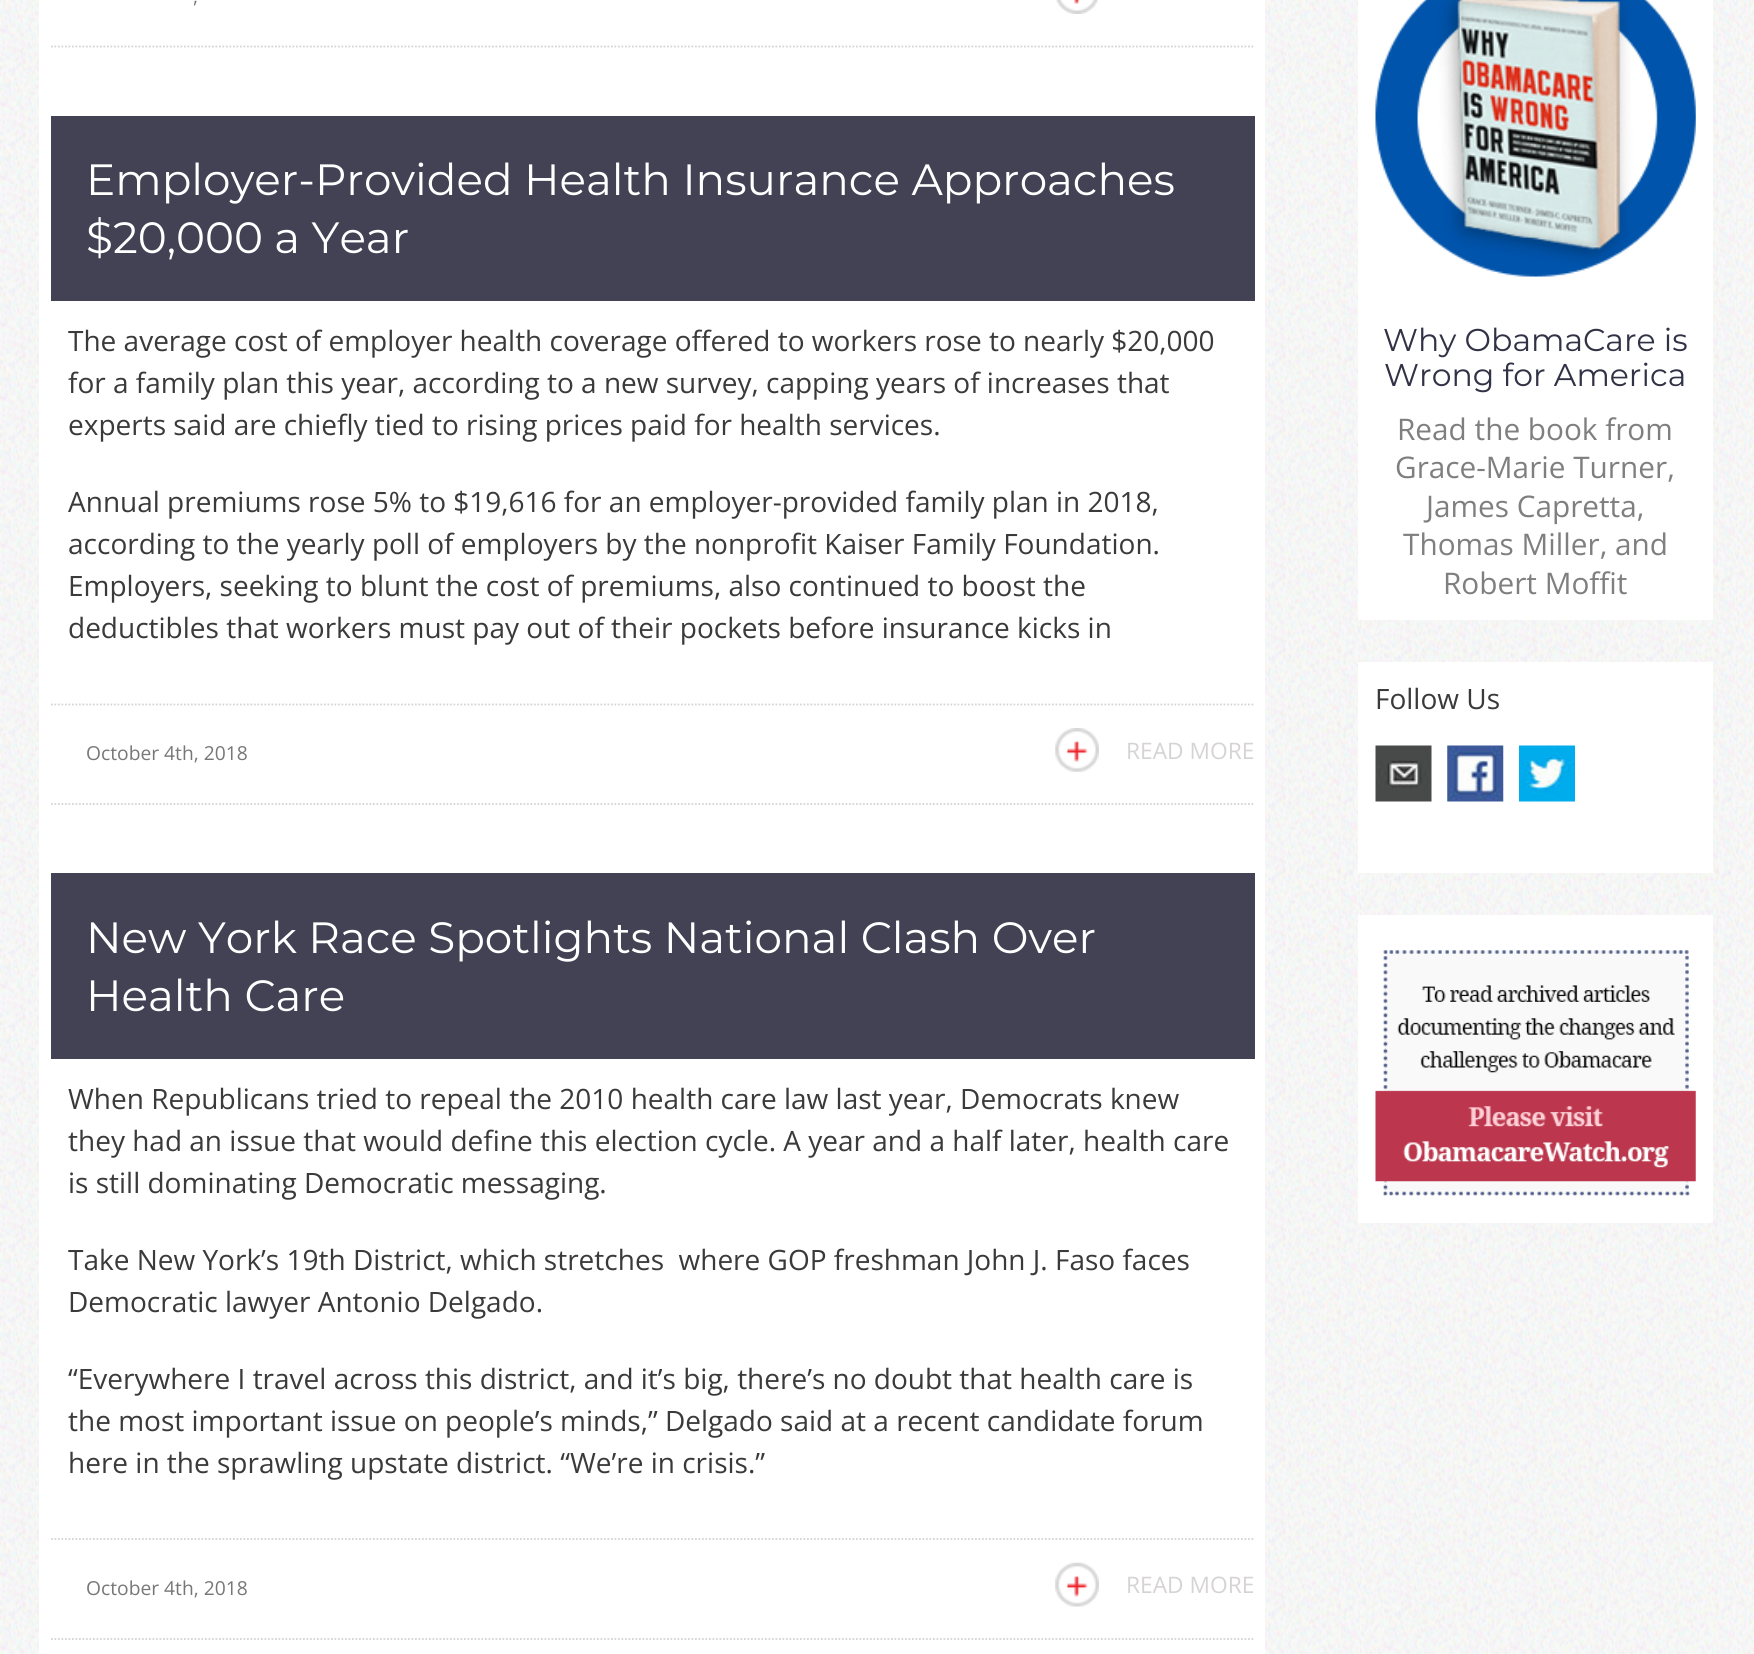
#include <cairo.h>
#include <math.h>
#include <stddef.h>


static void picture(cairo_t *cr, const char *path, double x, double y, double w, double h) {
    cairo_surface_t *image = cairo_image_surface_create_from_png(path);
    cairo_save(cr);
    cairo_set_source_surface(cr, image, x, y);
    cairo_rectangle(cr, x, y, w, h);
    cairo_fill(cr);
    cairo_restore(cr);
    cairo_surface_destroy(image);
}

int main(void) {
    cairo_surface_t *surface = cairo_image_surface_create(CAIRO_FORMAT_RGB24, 1754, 1654);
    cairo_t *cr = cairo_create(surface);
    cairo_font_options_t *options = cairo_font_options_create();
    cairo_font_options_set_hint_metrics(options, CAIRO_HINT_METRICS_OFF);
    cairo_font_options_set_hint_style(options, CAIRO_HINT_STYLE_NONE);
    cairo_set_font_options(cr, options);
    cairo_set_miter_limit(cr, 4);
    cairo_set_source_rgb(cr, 1, 1, 1);
    cairo_paint(cr);
    picture(cr, "img1.png", 0, 0, 1754, 1654);
    cairo_set_source_rgb(cr, 1, 1, 1);
    cairo_rectangle(cr, 39, 0, 1226, 1654);
    cairo_fill(cr);
    cairo_new_path(cr);
    cairo_move_to(cr, 51, 46.5);
    cairo_line_to(cr, 1255, 46.5);
    cairo_set_source_rgb(cr, 0.839, 0.827, 0.827);
    cairo_set_line_width(cr, 1.8);
    cairo_set_dash(cr, (double[]){1.75, 1.75}, 2, 0);
    cairo_stroke(cr);
    cairo_select_font_face(cr, "Open Sans", CAIRO_FONT_SLANT_NORMAL, CAIRO_FONT_WEIGHT_NORMAL);
    cairo_set_font_size(cr, 19.25);
    cairo_set_source_rgb(cr, 0.467, 0.467, 0.467);
    cairo_move_to(cr, 193, 3);
    cairo_show_text(cr, ",");
    picture(cr, "img2.png", 1056, 0, 42, 14);
    cairo_set_source_rgb(cr, 0.259, 0.259, 0.329);
    cairo_rectangle(cr, 51, 116, 1204, 185);
    cairo_fill(cr);
    cairo_select_font_face(cr, "Montserrat", CAIRO_FONT_SLANT_NORMAL, CAIRO_FONT_WEIGHT_NORMAL);
    cairo_set_font_size(cr, 43.75);
    cairo_set_source_rgb(cr, 1, 1, 1);
    cairo_move_to(cr, 86, 195);
    cairo_show_text(cr, "Employer-Provided Health Insurance Approaches");
    cairo_move_to(cr, 86, 253);
    cairo_show_text(cr, "$20,000 a Year");
    cairo_select_font_face(cr, "Open Sans", CAIRO_FONT_SLANT_NORMAL, CAIRO_FONT_WEIGHT_NORMAL);
    cairo_set_font_size(cr, 28);
    cairo_set_source_rgb(cr, 0.227, 0.227, 0.227);
    cairo_move_to(cr, 68, 351);
    cairo_show_text(cr, "The average cost of employer health coverage offered to workers rose to nearly $20,000");
    cairo_move_to(cr, 68, 393);
    cairo_show_text(cr, "for a family plan this year, according to a new survey, capping years of increases that");
    cairo_move_to(cr, 68, 435);
    cairo_show_text(cr, "experts said are chiefly tied to rising prices paid for health services.");
    cairo_move_to(cr, 68, 512);
    cairo_show_text(cr, "Annual premiums rose 5% to $19,616 for an employer-provided family plan in 2018,");
    cairo_move_to(cr, 68, 554);
    cairo_show_text(cr, "according to the yearly poll of employers by the nonprofit Kaiser Family Foundation.");
    cairo_move_to(cr, 68, 596);
    cairo_show_text(cr, "Employers, seeking to blunt the cost of premiums, also continued to boost the");
    cairo_move_to(cr, 68, 638);
    cairo_show_text(cr, "deductibles that workers must pay out of their pockets before insurance kicks in");
    cairo_new_path(cr);
    cairo_move_to(cr, 51, 704.5);
    cairo_line_to(cr, 1255, 704.5);
    cairo_set_source_rgb(cr, 0.839, 0.827, 0.827);
    cairo_stroke(cr);
    cairo_new_path(cr);
    cairo_move_to(cr, 51, 804);
    cairo_line_to(cr, 1255, 804);
    cairo_stroke(cr);
    cairo_set_font_size(cr, 19.25);
    cairo_set_source_rgb(cr, 0.467, 0.467, 0.467);
    cairo_move_to(cr, 86, 760);
    cairo_show_text(cr, "October 4th, 2018");
    picture(cr, "img3.png", 1055, 728, 44, 44);
    cairo_set_font_size(cr, 22.75);
    cairo_set_source_rgb(cr, 0.839, 0.827, 0.827);
    cairo_move_to(cr, 1126, 759);
    cairo_show_text(cr, "READ MORE");
    cairo_set_source_rgb(cr, 0.259, 0.259, 0.329);
    cairo_rectangle(cr, 51, 873, 1204, 186);
    cairo_fill(cr);
    cairo_select_font_face(cr, "Montserrat", CAIRO_FONT_SLANT_NORMAL, CAIRO_FONT_WEIGHT_NORMAL);
    cairo_set_font_size(cr, 43.75);
    cairo_set_source_rgb(cr, 1, 1, 1);
    cairo_move_to(cr, 86, 953);
    cairo_show_text(cr, "New York Race Spotlights National Clash Over");
    cairo_move_to(cr, 86, 1011);
    cairo_show_text(cr, "Health Care");
    cairo_select_font_face(cr, "Open Sans", CAIRO_FONT_SLANT_NORMAL, CAIRO_FONT_WEIGHT_NORMAL);
    cairo_set_font_size(cr, 28);
    cairo_set_source_rgb(cr, 0.227, 0.227, 0.227);
    cairo_move_to(cr, 68, 1109);
    cairo_show_text(cr, "When Republicans tried to repeal the 2010 health care law last year, Democrats knew");
    cairo_move_to(cr, 68, 1151);
    cairo_show_text(cr, "they had an issue that would define this election cycle. A year and a half later, health care");
    cairo_move_to(cr, 68, 1193);
    cairo_show_text(cr, "is still dominating Democratic messaging.");
    cairo_move_to(cr, 68, 1270);
    cairo_show_text(cr, "Take New York’s 19th District, which stretches  where GOP freshman John J. Faso faces");
    cairo_move_to(cr, 68, 1312);
    cairo_show_text(cr, "Democratic lawyer Antonio Delgado.");
    cairo_move_to(cr, 68, 1389);
    cairo_show_text(cr, "“Everywhere I travel across this district, and it’s big, there’s no doubt that health care is");
    cairo_move_to(cr, 68, 1431);
    cairo_show_text(cr, "the most important issue on people’s minds,” Delgado said at a recent candidate forum");
    cairo_move_to(cr, 68, 1473);
    cairo_show_text(cr, "here in the sprawling upstate district. “We’re in crisis.”");
    cairo_new_path(cr);
    cairo_move_to(cr, 51, 1539);
    cairo_line_to(cr, 1255, 1539);
    cairo_set_source_rgb(cr, 0.839, 0.827, 0.827);
    cairo_stroke(cr);
    cairo_new_path(cr);
    cairo_move_to(cr, 51, 1639);
    cairo_line_to(cr, 1255, 1639);
    cairo_stroke(cr);
    cairo_set_font_size(cr, 19.25);
    cairo_set_source_rgb(cr, 0.467, 0.467, 0.467);
    cairo_move_to(cr, 86, 1595);
    cairo_show_text(cr, "October 4th, 2018");
    picture(cr, "img4.png", 1055, 1562, 44, 45);
    cairo_set_font_size(cr, 22.75);
    cairo_set_source_rgb(cr, 0.839, 0.827, 0.827);
    cairo_move_to(cr, 1126, 1593);
    cairo_show_text(cr, "READ MORE");
    cairo_set_source_rgb(cr, 1, 1, 1);
    cairo_rectangle(cr, 1358, 0, 355, 620);
    cairo_fill(cr);
    picture(cr, "img5.png", 1375, 0, 321, 277);
    cairo_select_font_face(cr, "Montserrat", CAIRO_FONT_SLANT_NORMAL, CAIRO_FONT_WEIGHT_NORMAL);
    cairo_set_font_size(cr, 31.5);
    cairo_set_source_rgb(cr, 0.192, 0.196, 0.271);
    cairo_move_to(cr, 1383, 351);
    cairo_show_text(cr, "Why ObamaCare is");
    cairo_move_to(cr, 1384, 386);
    cairo_show_text(cr, "Wrong for America");
    cairo_select_font_face(cr, "Open Sans", CAIRO_FONT_SLANT_NORMAL, CAIRO_FONT_WEIGHT_NORMAL);
    cairo_set_font_size(cr, 29.75);
    cairo_set_source_rgb(cr, 0.498, 0.498, 0.498);
    cairo_move_to(cr, 1397, 440);
    cairo_show_text(cr, "Read the book from");
    cairo_move_to(cr, 1395, 478);
    cairo_show_text(cr, "Grace-Marie Turner,");
    cairo_move_to(cr, 1426, 517);
    cairo_show_text(cr, "James Capretta,");
    cairo_move_to(cr, 1403, 555);
    cairo_show_text(cr, "Thomas Miller, and");
    cairo_move_to(cr, 1443, 594);
    cairo_show_text(cr, "Robert Moffit");
    cairo_set_source_rgb(cr, 1, 1, 1);
    cairo_rectangle(cr, 1358, 662, 355, 211);
    cairo_fill(cr);
    cairo_set_font_size(cr, 28);
    cairo_set_source_rgb(cr, 0.227, 0.227, 0.227);
    cairo_move_to(cr, 1375, 709);
    cairo_show_text(cr, "Follow Us");
    picture(cr, "img6.png", 1375, 745, 57, 57);
    picture(cr, "img7.png", 1447, 745, 57, 57);
    picture(cr, "img8.png", 1519, 745, 56, 57);
    cairo_set_source_rgb(cr, 1, 1, 1);
    cairo_rectangle(cr, 1358, 915, 355, 308);
    cairo_fill(cr);
    picture(cr, "img9.png", 1375, 950, 321, 246);
    cairo_surface_write_to_png(surface, "page.png");
    cairo_font_options_destroy(options);
    cairo_destroy(cr);
    cairo_surface_destroy(surface);
    return 0;
}
